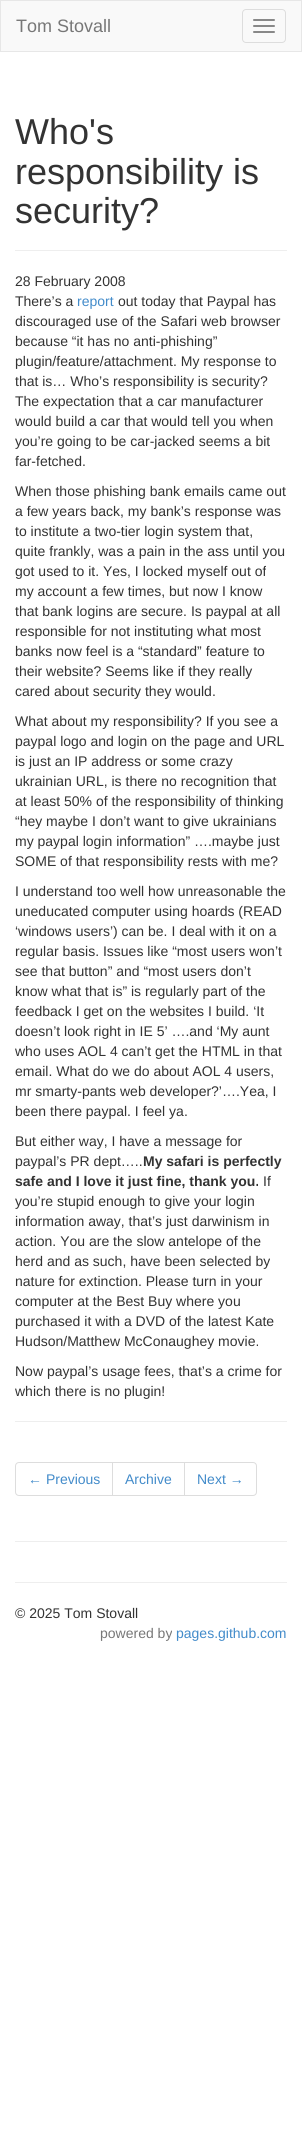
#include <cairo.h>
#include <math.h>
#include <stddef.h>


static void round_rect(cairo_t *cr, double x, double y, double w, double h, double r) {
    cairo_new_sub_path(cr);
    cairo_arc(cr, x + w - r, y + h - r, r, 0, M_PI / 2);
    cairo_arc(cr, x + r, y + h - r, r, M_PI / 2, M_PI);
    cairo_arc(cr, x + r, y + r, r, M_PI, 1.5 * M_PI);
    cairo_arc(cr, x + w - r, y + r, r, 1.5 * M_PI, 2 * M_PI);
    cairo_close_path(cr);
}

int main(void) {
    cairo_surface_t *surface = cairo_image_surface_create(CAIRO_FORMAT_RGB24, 302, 2130);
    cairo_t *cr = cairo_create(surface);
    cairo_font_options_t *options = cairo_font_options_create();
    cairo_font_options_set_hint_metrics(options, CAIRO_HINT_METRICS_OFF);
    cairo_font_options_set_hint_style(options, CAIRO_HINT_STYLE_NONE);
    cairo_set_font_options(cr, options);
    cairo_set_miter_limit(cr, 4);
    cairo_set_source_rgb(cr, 1, 1, 1);
    cairo_paint(cr);
    cairo_set_source_rgb(cr, 0.973, 0.973, 0.973);
    cairo_rectangle(cr, 0.5, 0.5, 301, 51);
    cairo_fill_preserve(cr);
    cairo_set_source_rgb(cr, 0.906, 0.906, 0.906);
    cairo_set_line_width(cr, 1);
    cairo_stroke(cr);
    cairo_select_font_face(cr, "Liberation Sans", CAIRO_FONT_SLANT_NORMAL, CAIRO_FONT_WEIGHT_NORMAL);
    cairo_set_font_size(cr, 18);
    cairo_set_source_rgb(cr, 0.467, 0.467, 0.467);
    cairo_move_to(cr, 16, 32);
    cairo_show_text(cr, "Tom Stovall");
    round_rect(cr, 242.5, 9.5, 43, 33, 3.5);
    cairo_set_source_rgb(cr, 0.867, 0.867, 0.867);
    cairo_stroke(cr);
    cairo_set_source_rgb(cr, 0.533, 0.533, 0.533);
    round_rect(cr, 253, 19, 22, 2, 1);
    cairo_fill(cr);
    round_rect(cr, 253, 25, 22, 2, 1);
    cairo_fill(cr);
    round_rect(cr, 253, 31, 22, 2, 1);
    cairo_fill(cr);
    cairo_set_source_rgb(cr, 0.933, 0.933, 0.933);
    cairo_rectangle(cr, 15, 250, 272, 1);
    cairo_fill(cr);
    cairo_set_font_size(cr, 36);
    cairo_set_source_rgb(cr, 0.2, 0.2, 0.2);
    cairo_move_to(cr, 15, 144);
    cairo_show_text(cr, "Who's");
    cairo_move_to(cr, 15, 184);
    cairo_show_text(cr, "responsibility is");
    cairo_move_to(cr, 15, 223);
    cairo_show_text(cr, "security?");
    cairo_set_font_size(cr, 14);
    cairo_move_to(cr, 15, 286);
    cairo_show_text(cr, "28 February 2008");
    cairo_move_to(cr, 15, 306);
    cairo_show_text(cr, "There’s a");
    cairo_set_source_rgb(cr, 0.259, 0.545, 0.792);
    cairo_move_to(cr, 77, 306);
    cairo_show_text(cr, "report");
    cairo_set_source_rgb(cr, 0.2, 0.2, 0.2);
    cairo_move_to(cr, 118, 306);
    cairo_show_text(cr, "out today that Paypal has");
    cairo_move_to(cr, 15, 326);
    cairo_show_text(cr, "discouraged use of the Safari web browser");
    cairo_move_to(cr, 15, 346);
    cairo_show_text(cr, "because “it has no anti-phishing”");
    cairo_move_to(cr, 15, 366);
    cairo_show_text(cr, "plugin/feature/attachment. My response to");
    cairo_move_to(cr, 15, 386);
    cairo_show_text(cr, "that is… Who’s responsibility is security?");
    cairo_move_to(cr, 15, 406);
    cairo_show_text(cr, "The expectation that a car manufacturer");
    cairo_move_to(cr, 15, 426);
    cairo_show_text(cr, "would build a car that would tell you when");
    cairo_move_to(cr, 15, 446);
    cairo_show_text(cr, "you’re going to be car-jacked seems a bit");
    cairo_move_to(cr, 15, 466);
    cairo_show_text(cr, "far-fetched.");
    cairo_move_to(cr, 15, 496);
    cairo_show_text(cr, "When those phishing bank emails came out");
    cairo_move_to(cr, 15, 516);
    cairo_show_text(cr, "a few years back, my bank’s response was");
    cairo_move_to(cr, 15, 536);
    cairo_show_text(cr, "to institute a two-tier login system that,");
    cairo_move_to(cr, 15, 556);
    cairo_show_text(cr, "quite frankly, was a pain in the ass until you");
    cairo_move_to(cr, 15, 576);
    cairo_show_text(cr, "got used to it. Yes, I locked myself out of");
    cairo_move_to(cr, 15, 596);
    cairo_show_text(cr, "my account a few times, but now I know");
    cairo_move_to(cr, 15, 616);
    cairo_show_text(cr, "that bank logins are secure. Is paypal at all");
    cairo_move_to(cr, 15, 636);
    cairo_show_text(cr, "responsible for not instituting what most");
    cairo_move_to(cr, 15, 656);
    cairo_show_text(cr, "banks now feel is a “standard” feature to");
    cairo_move_to(cr, 15, 676);
    cairo_show_text(cr, "their website? Seems like if they really");
    cairo_move_to(cr, 15, 696);
    cairo_show_text(cr, "cared about security they would.");
    cairo_move_to(cr, 15, 726);
    cairo_show_text(cr, "What about my responsibility? If you see a");
    cairo_move_to(cr, 15, 746);
    cairo_show_text(cr, "paypal logo and login on the page and URL");
    cairo_move_to(cr, 15, 766);
    cairo_show_text(cr, "is just an IP address or some crazy");
    cairo_move_to(cr, 15, 786);
    cairo_show_text(cr, "ukrainian URL, is there no recognition that");
    cairo_move_to(cr, 15, 806);
    cairo_show_text(cr, "at least 50% of the responsibility of thinking");
    cairo_move_to(cr, 15, 826);
    cairo_show_text(cr, "“hey maybe I don’t want to give ukrainians");
    cairo_move_to(cr, 15, 846);
    cairo_show_text(cr, "my paypal login information” ….maybe just");
    cairo_move_to(cr, 15, 866);
    cairo_show_text(cr, "SOME of that responsibility rests with me?");
    cairo_move_to(cr, 15, 896);
    cairo_show_text(cr, "I understand too well how unreasonable the");
    cairo_move_to(cr, 15, 916);
    cairo_show_text(cr, "uneducated computer using hoards (READ");
    cairo_move_to(cr, 15, 936);
    cairo_show_text(cr, "‘windows users’) can be. I deal with it on a");
    cairo_move_to(cr, 15, 956);
    cairo_show_text(cr, "regular basis. Issues like “most users won’t");
    cairo_move_to(cr, 15, 976);
    cairo_show_text(cr, "see that button” and “most users don’t");
    cairo_move_to(cr, 15, 996);
    cairo_show_text(cr, "know what that is” is regularly part of the");
    cairo_move_to(cr, 15, 1016);
    cairo_show_text(cr, "feedback I get on the websites I build. ‘It");
    cairo_move_to(cr, 15, 1036);
    cairo_show_text(cr, "doesn’t look right in IE 5’ ….and ‘My aunt");
    cairo_move_to(cr, 15, 1056);
    cairo_show_text(cr, "who uses AOL 4 can’t get the HTML in that");
    cairo_move_to(cr, 15, 1076);
    cairo_show_text(cr, "email. What do we do about AOL 4 users,");
    cairo_move_to(cr, 15, 1096);
    cairo_show_text(cr, "mr smarty-pants web developer?’….Yea, I");
    cairo_move_to(cr, 15, 1116);
    cairo_show_text(cr, "been there paypal. I feel ya.");
    cairo_move_to(cr, 15, 1146);
    cairo_show_text(cr, "But either way, I have a message for");
    cairo_move_to(cr, 15, 1166);
    cairo_show_text(cr, "paypal’s PR dept…..");
    cairo_select_font_face(cr, "Liberation Sans", CAIRO_FONT_SLANT_NORMAL, CAIRO_FONT_WEIGHT_BOLD);
    cairo_move_to(cr, 143, 1166);
    cairo_show_text(cr, "My safari is perfectly");
    cairo_move_to(cr, 15, 1186);
    cairo_show_text(cr, "safe and I love it just fine, thank you.");
    cairo_select_font_face(cr, "Liberation Sans", CAIRO_FONT_SLANT_NORMAL, CAIRO_FONT_WEIGHT_NORMAL);
    cairo_move_to(cr, 263, 1186);
    cairo_show_text(cr, "If");
    cairo_move_to(cr, 15, 1206);
    cairo_show_text(cr, "you’re stupid enough to give your login");
    cairo_move_to(cr, 15, 1226);
    cairo_show_text(cr, "information away, that’s just darwinism in");
    cairo_move_to(cr, 15, 1246);
    cairo_show_text(cr, "action. You are the slow antelope of the");
    cairo_move_to(cr, 15, 1266);
    cairo_show_text(cr, "herd and as such, have been selected by");
    cairo_move_to(cr, 15, 1286);
    cairo_show_text(cr, "nature for extinction. Please turn in your");
    cairo_move_to(cr, 15, 1306);
    cairo_show_text(cr, "computer at the Best Buy where you");
    cairo_move_to(cr, 15, 1326);
    cairo_show_text(cr, "purchased it with a DVD of the latest Kate");
    cairo_move_to(cr, 15, 1346);
    cairo_show_text(cr, "Hudson/Matthew McConaughey movie.");
    cairo_move_to(cr, 15, 1376);
    cairo_show_text(cr, "Now paypal’s usage fees, that’s a crime for");
    cairo_move_to(cr, 15, 1396);
    cairo_show_text(cr, "which there is no plugin!");
    cairo_set_source_rgb(cr, 0.933, 0.933, 0.933);
    cairo_rectangle(cr, 15, 1421, 272, 1);
    cairo_fill(cr);
    cairo_new_path(cr);
    cairo_move_to(cr, 19, 1462.5);
    cairo_line_to(cr, 112.5, 1462.5);
    cairo_line_to(cr, 112.5, 1495.5);
    cairo_line_to(cr, 19, 1495.5);
    cairo_curve_to(cr, 17, 1495.5, 15.5, 1494, 15.5, 1492);
    cairo_line_to(cr, 15.5, 1466);
    cairo_curve_to(cr, 15.5, 1464, 17, 1462.5, 19, 1462.5);
    cairo_close_path(cr);
    cairo_set_source_rgb(cr, 0.867, 0.867, 0.867);
    cairo_stroke(cr);
    cairo_set_source_rgb(cr, 0.259, 0.545, 0.792);
    cairo_move_to(cr, 28, 1484);
    cairo_show_text(cr, "← Previous");
    cairo_rectangle(cr, 112.5, 1462.5, 72, 33);
    cairo_set_source_rgb(cr, 0.867, 0.867, 0.867);
    cairo_stroke(cr);
    cairo_set_source_rgb(cr, 0.259, 0.545, 0.792);
    cairo_move_to(cr, 125, 1484);
    cairo_show_text(cr, "Archive");
    cairo_set_source_rgb(cr, 1, 1, 1);
    cairo_new_path(cr);
    cairo_move_to(cr, 184.5, 1462.5);
    cairo_line_to(cr, 253, 1462.5);
    cairo_curve_to(cr, 255, 1462.5, 256.5, 1464, 256.5, 1466);
    cairo_line_to(cr, 256.5, 1492);
    cairo_curve_to(cr, 256.5, 1494, 255, 1495.5, 253, 1495.5);
    cairo_line_to(cr, 184.5, 1495.5);
    cairo_close_path(cr);
    cairo_fill_preserve(cr);
    cairo_set_source_rgb(cr, 0.867, 0.867, 0.867);
    cairo_stroke(cr);
    cairo_set_source_rgb(cr, 0.259, 0.545, 0.792);
    cairo_move_to(cr, 197, 1484);
    cairo_show_text(cr, "Next →");
    cairo_set_source_rgb(cr, 0.933, 0.933, 0.933);
    cairo_rectangle(cr, 15, 1541, 272, 1);
    cairo_fill(cr);
    cairo_rectangle(cr, 15, 1582, 272, 1);
    cairo_fill(cr);
    cairo_set_source_rgb(cr, 0.2, 0.2, 0.2);
    cairo_move_to(cr, 15, 1618);
    cairo_show_text(cr, "© 2025 Tom Stovall");
    cairo_set_source_rgb(cr, 0.467, 0.467, 0.467);
    cairo_move_to(cr, 100, 1638);
    cairo_show_text(cr, "powered by");
    cairo_set_source_rgb(cr, 0.259, 0.545, 0.792);
    cairo_move_to(cr, 176, 1638);
    cairo_show_text(cr, "pages.github.com");
    cairo_surface_write_to_png(surface, "page.png");
    cairo_font_options_destroy(options);
    cairo_destroy(cr);
    cairo_surface_destroy(surface);
    return 0;
}
